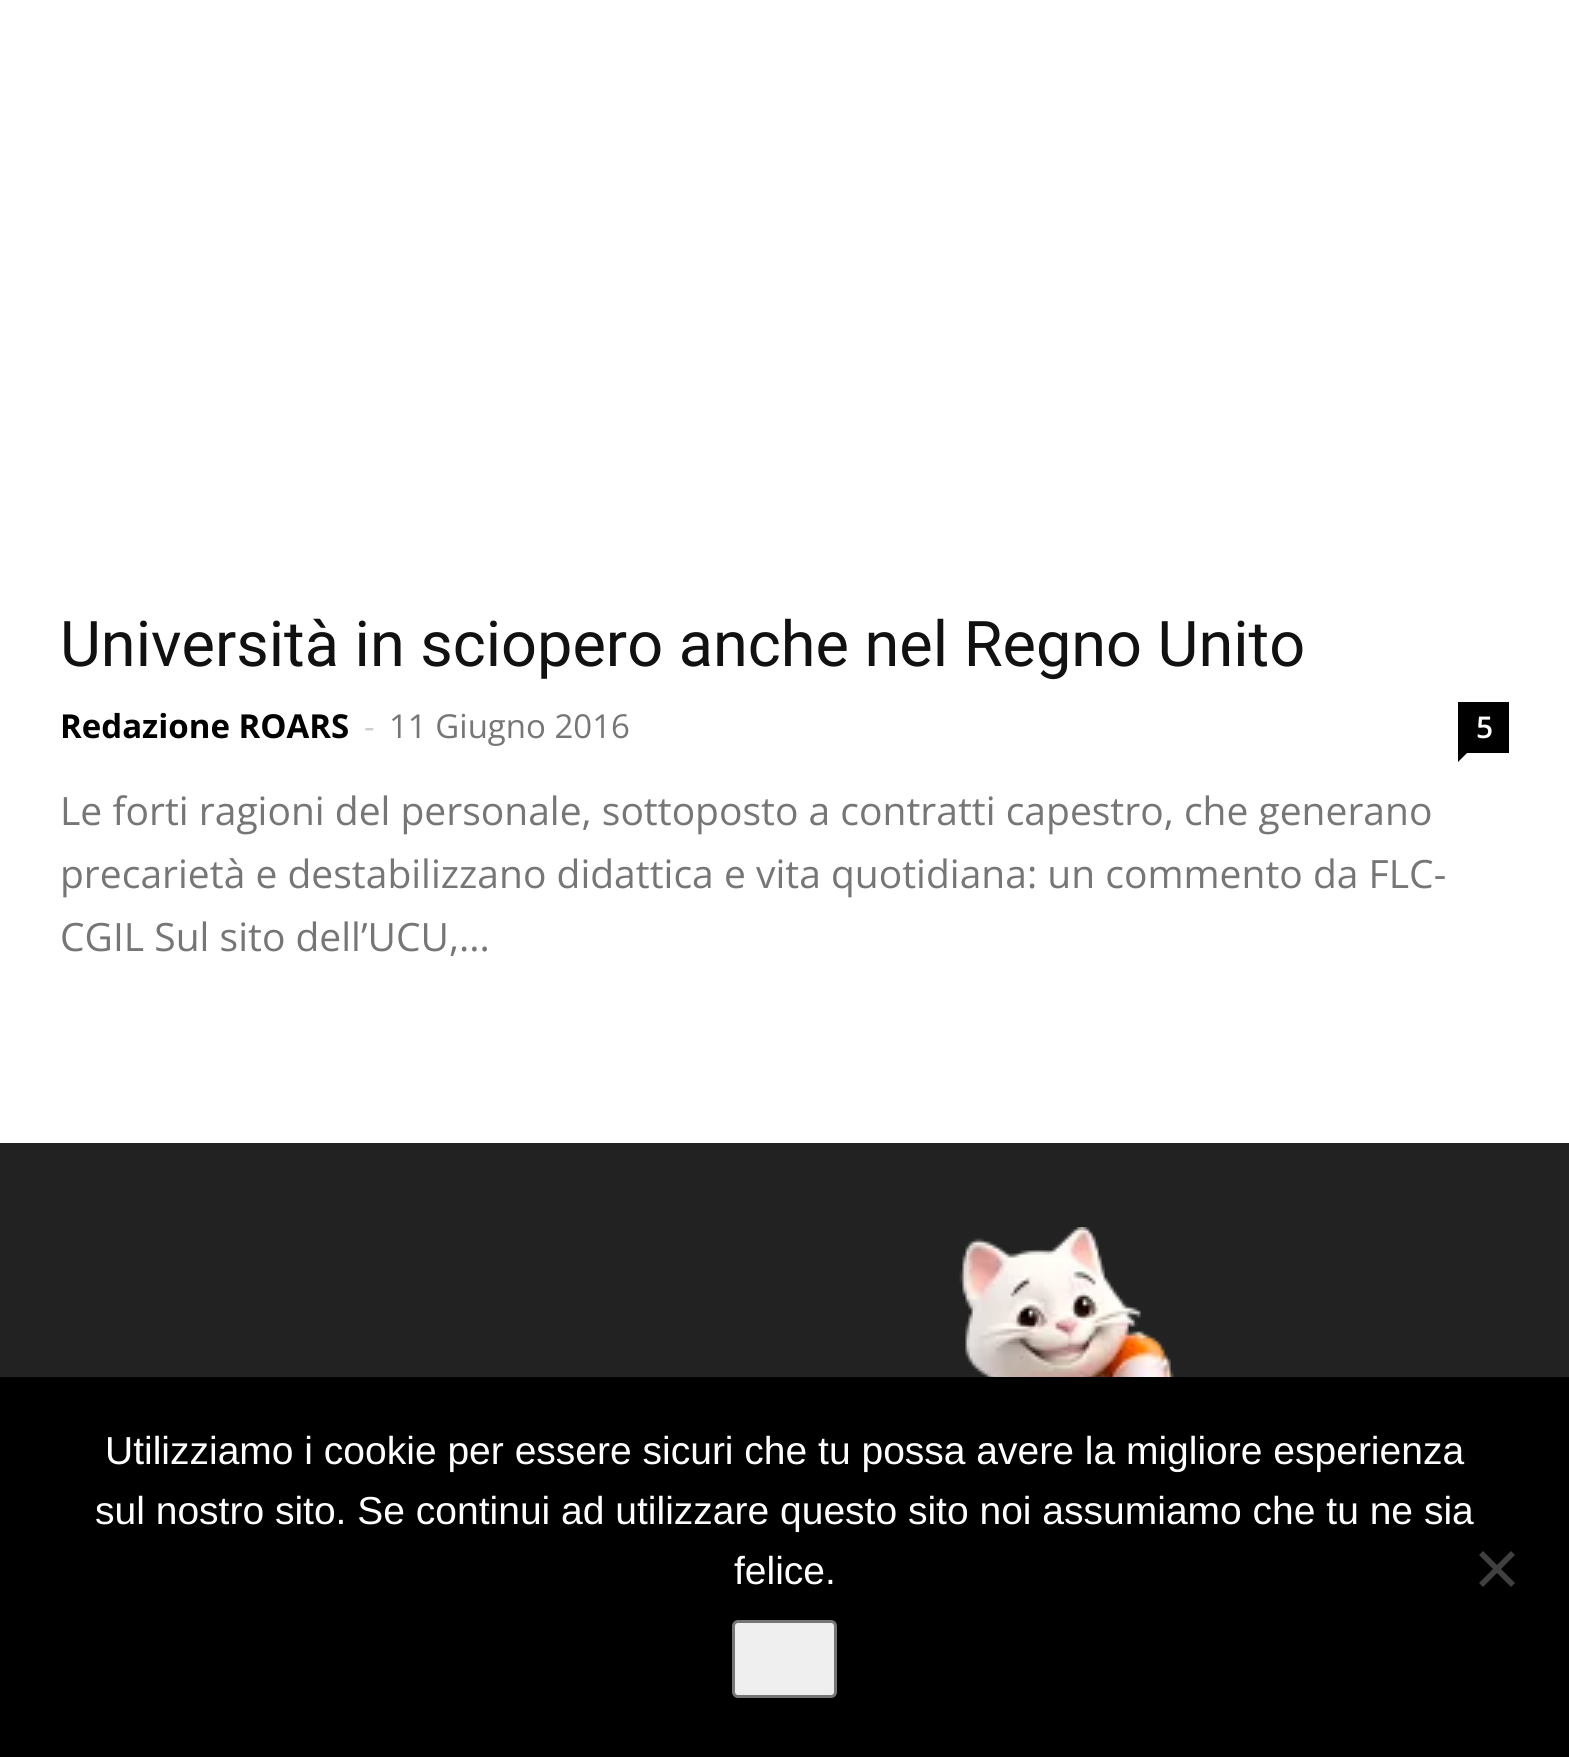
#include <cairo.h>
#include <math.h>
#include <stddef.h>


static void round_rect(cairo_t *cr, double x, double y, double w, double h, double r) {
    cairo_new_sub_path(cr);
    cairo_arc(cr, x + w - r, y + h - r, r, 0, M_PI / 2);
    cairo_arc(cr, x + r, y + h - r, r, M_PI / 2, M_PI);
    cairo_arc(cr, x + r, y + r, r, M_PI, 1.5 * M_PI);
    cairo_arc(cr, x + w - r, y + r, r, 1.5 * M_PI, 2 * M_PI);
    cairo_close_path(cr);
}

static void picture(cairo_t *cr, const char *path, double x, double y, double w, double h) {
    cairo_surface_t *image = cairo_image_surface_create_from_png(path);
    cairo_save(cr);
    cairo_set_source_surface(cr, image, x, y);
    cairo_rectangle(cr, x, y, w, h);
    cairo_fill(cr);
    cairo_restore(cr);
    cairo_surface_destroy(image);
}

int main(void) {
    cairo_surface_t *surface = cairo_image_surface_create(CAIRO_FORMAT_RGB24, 1569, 1757);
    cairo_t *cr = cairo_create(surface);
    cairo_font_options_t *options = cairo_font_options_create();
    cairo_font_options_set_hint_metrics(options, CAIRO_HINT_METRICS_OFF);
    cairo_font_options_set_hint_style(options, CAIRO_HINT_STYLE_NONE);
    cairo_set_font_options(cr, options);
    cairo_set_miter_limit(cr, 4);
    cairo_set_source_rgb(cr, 1, 1, 1);
    cairo_paint(cr);
    cairo_select_font_face(cr, "Roboto", CAIRO_FONT_SLANT_NORMAL, CAIRO_FONT_WEIGHT_NORMAL);
    cairo_set_font_size(cr, 63);
    cairo_set_source_rgb(cr, 0.067, 0.067, 0.067);
    cairo_move_to(cr, 60, 666);
    cairo_show_text(cr, "Università in sciopero anche nel Regno Unito");
    cairo_select_font_face(cr, "Open Sans", CAIRO_FONT_SLANT_NORMAL, CAIRO_FONT_WEIGHT_BOLD);
    cairo_set_font_size(cr, 33);
    cairo_set_source_rgb(cr, 0, 0, 0);
    cairo_move_to(cr, 60, 738);
    cairo_show_text(cr, "Redazione ROARS");
    cairo_select_font_face(cr, "Open Sans", CAIRO_FONT_SLANT_NORMAL, CAIRO_FONT_WEIGHT_NORMAL);
    cairo_set_source_rgb(cr, 0.8, 0.8, 0.8);
    cairo_move_to(cr, 364, 738);
    cairo_show_text(cr, "-");
    cairo_set_source_rgb(cr, 0.463, 0.463, 0.463);
    cairo_move_to(cr, 389, 738);
    cairo_show_text(cr, "11 Giugno 2016");
    cairo_set_source_rgb(cr, 0, 0, 0);
    cairo_rectangle(cr, 1458, 702, 51, 51);
    cairo_fill(cr);
    cairo_select_font_face(cr, "Open Sans SemiBold", CAIRO_FONT_SLANT_NORMAL, CAIRO_FONT_WEIGHT_NORMAL);
    cairo_set_font_size(cr, 30);
    cairo_set_source_rgb(cr, 1, 1, 1);
    cairo_move_to(cr, 1476, 738);
    cairo_show_text(cr, "5");
    cairo_set_source_rgb(cr, 0, 0, 0);
    cairo_new_path(cr);
    cairo_move_to(cr, 1458, 753);
    cairo_line_to(cr, 1467, 753);
    cairo_line_to(cr, 1458, 762);
    cairo_close_path(cr);
    cairo_fill(cr);
    cairo_select_font_face(cr, "Open Sans", CAIRO_FONT_SLANT_NORMAL, CAIRO_FONT_WEIGHT_NORMAL);
    cairo_set_font_size(cr, 39);
    cairo_set_source_rgb(cr, 0.463, 0.463, 0.463);
    cairo_move_to(cr, 60, 825);
    cairo_show_text(cr, "Le forti ragioni del personale, sottoposto a contratti capestro, che generano");
    cairo_move_to(cr, 60, 888);
    cairo_show_text(cr, "precarietà e destabilizzano didattica e vita quotidiana: un commento da FLC-");
    cairo_move_to(cr, 60, 951);
    cairo_show_text(cr, "CGIL Sul sito dell’UCU,...");
    cairo_set_source_rgb(cr, 0.133, 0.133, 0.133);
    cairo_rectangle(cr, 0, 1143, 1569, 234);
    cairo_fill(cr);
    picture(cr, "img1.png", 959, 1227, 215, 150);
    cairo_set_source_rgb(cr, 0, 0, 0);
    cairo_rectangle(cr, 0, 1377, 1569, 380);
    cairo_fill(cr);
    cairo_select_font_face(cr, "Liberation Sans", CAIRO_FONT_SLANT_NORMAL, CAIRO_FONT_WEIGHT_NORMAL);
    cairo_set_source_rgb(cr, 1, 1, 1);
    cairo_move_to(cr, 105, 1464);
    cairo_show_text(cr, "Utilizziamo i cookie per essere sicuri che tu possa avere la migliore esperienza");
    cairo_move_to(cr, 95, 1524);
    cairo_show_text(cr, "sul nostro sito. Se continui ad utilizzare questo sito noi assumiamo che tu ne sia");
    cairo_move_to(cr, 734, 1584);
    cairo_show_text(cr, "felice.");
    cairo_set_source_rgb(cr, 0.251, 0.251, 0.251);
    cairo_new_path(cr);
    cairo_move_to(cr, 1511, 1551);
    cairo_line_to(cr, 1515, 1555);
    cairo_line_to(cr, 1483, 1587);
    cairo_line_to(cr, 1479, 1583);
    cairo_close_path(cr);
    cairo_fill(cr);
    cairo_new_path(cr);
    cairo_move_to(cr, 1479, 1555);
    cairo_line_to(cr, 1483, 1551);
    cairo_line_to(cr, 1515, 1583);
    cairo_line_to(cr, 1511, 1587);
    cairo_close_path(cr);
    cairo_fill(cr);
    cairo_set_source_rgb(cr, 0.937, 0.937, 0.937);
    round_rect(cr, 733.5, 1621.5, 102, 75, 4.5);
    cairo_fill_preserve(cr);
    cairo_set_source_rgb(cr, 0.463, 0.463, 0.463);
    cairo_set_line_width(cr, 3);
    cairo_stroke(cr);
    cairo_surface_write_to_png(surface, "page.png");
    cairo_font_options_destroy(options);
    cairo_destroy(cr);
    cairo_surface_destroy(surface);
    return 0;
}
